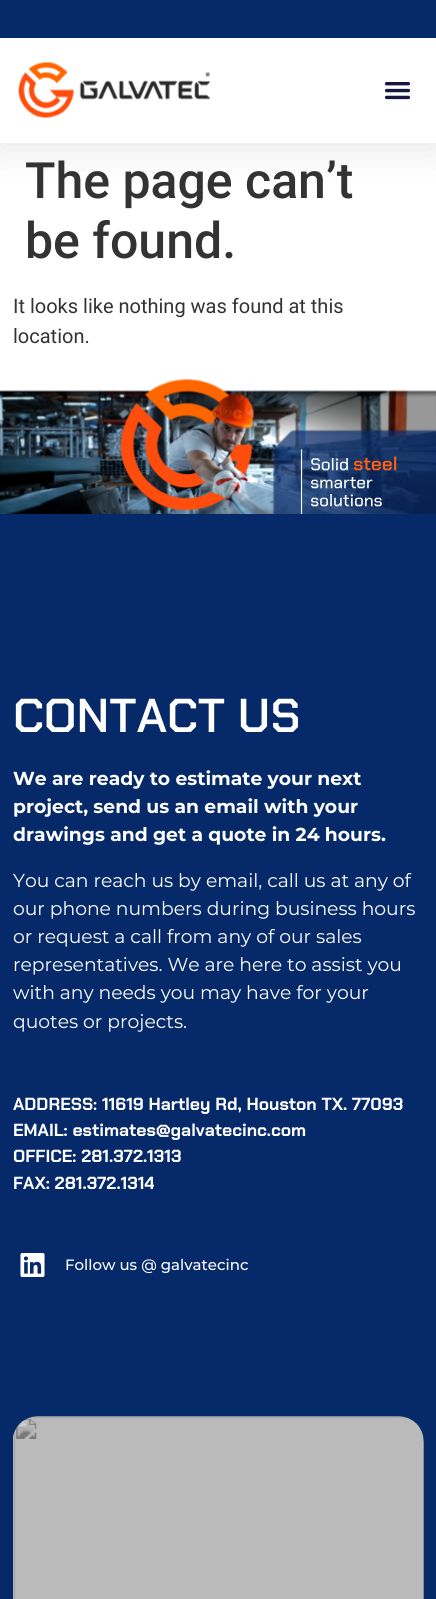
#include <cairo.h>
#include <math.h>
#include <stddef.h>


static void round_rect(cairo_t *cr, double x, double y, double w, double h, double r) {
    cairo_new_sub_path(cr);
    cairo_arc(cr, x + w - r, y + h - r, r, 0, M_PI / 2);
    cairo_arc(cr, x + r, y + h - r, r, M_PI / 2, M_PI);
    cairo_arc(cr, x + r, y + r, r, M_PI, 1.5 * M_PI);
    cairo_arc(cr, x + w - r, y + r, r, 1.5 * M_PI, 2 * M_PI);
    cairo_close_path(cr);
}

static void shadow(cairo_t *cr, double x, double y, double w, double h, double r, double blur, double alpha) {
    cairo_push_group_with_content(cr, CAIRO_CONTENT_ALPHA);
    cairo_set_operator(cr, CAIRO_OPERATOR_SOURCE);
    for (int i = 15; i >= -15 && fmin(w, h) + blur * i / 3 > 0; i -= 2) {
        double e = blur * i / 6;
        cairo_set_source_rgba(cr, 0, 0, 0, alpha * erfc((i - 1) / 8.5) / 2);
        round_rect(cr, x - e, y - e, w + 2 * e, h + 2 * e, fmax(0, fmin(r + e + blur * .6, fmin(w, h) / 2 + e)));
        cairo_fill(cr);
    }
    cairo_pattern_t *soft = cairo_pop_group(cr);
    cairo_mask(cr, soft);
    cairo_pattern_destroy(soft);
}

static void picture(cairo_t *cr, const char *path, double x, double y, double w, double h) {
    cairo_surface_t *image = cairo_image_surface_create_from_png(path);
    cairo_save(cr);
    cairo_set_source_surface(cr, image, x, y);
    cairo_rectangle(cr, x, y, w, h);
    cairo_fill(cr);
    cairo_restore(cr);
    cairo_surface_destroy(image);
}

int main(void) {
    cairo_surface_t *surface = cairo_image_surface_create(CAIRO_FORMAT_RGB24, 436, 1599);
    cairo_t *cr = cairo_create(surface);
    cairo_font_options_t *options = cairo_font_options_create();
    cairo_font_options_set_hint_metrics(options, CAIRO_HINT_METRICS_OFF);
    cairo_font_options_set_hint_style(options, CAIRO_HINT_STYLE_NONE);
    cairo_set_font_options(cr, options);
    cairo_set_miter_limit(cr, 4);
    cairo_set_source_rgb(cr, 1, 1, 1);
    cairo_paint(cr);
    cairo_set_source_rgb(cr, 0, 0, 0);
    shadow(cr, 0, 6, 436, 143, 0, 19, 0.1);
    cairo_set_source_rgb(cr, 0.027, 0.165, 0.412);
    cairo_rectangle(cr, 0, 0, 436, 38);
    cairo_fill(cr);
    cairo_set_source_rgb(cr, 1, 1, 1);
    cairo_rectangle(cr, 0, 38, 436, 105);
    cairo_fill(cr);
    picture(cr, "img1.png", 18, 62, 192, 56);
    picture(cr, "img2.png", 384, 82, 27, 18);
    cairo_select_font_face(cr, "Roboto Medium", CAIRO_FONT_SLANT_NORMAL, CAIRO_FONT_WEIGHT_NORMAL);
    cairo_set_font_size(cr, 50);
    cairo_set_source_rgb(cr, 0.2, 0.2, 0.2);
    cairo_move_to(cr, 25, 198);
    cairo_show_text(cr, "The page can’t");
    cairo_move_to(cr, 25, 258);
    cairo_show_text(cr, "be found.");
    cairo_select_font_face(cr, "Roboto", CAIRO_FONT_SLANT_NORMAL, CAIRO_FONT_WEIGHT_NORMAL);
    cairo_set_font_size(cr, 20);
    cairo_move_to(cr, 13, 313);
    cairo_show_text(cr, "It looks like nothing was found at this");
    cairo_move_to(cr, 13, 343);
    cairo_show_text(cr, "location.");
    picture(cr, "img3.png", 0, 378, 436, 136);
    cairo_set_source_rgb(cr, 0.027, 0.165, 0.412);
    cairo_rectangle(cr, 0, 514, 436, 1085);
    cairo_fill(cr);
    cairo_select_font_face(cr, "Chakra Petch SemiBold", CAIRO_FONT_SLANT_NORMAL, CAIRO_FONT_WEIGHT_NORMAL);
    cairo_set_font_size(cr, 47.5);
    cairo_set_source_rgb(cr, 1, 1, 1);
    cairo_move_to(cr, 13, 732);
    cairo_show_text(cr, "CONTACT US");
    cairo_select_font_face(cr, "Montserrat", CAIRO_FONT_SLANT_NORMAL, CAIRO_FONT_WEIGHT_BOLD);
    cairo_set_font_size(cr, 18.75);
    cairo_move_to(cr, 13, 785);
    cairo_show_text(cr, "We are ready to estimate your next");
    cairo_move_to(cr, 13, 813);
    cairo_show_text(cr, "project, send us an email with your");
    cairo_move_to(cr, 13, 841);
    cairo_show_text(cr, "drawings and get a quote in 24 hours.");
    cairo_select_font_face(cr, "Montserrat", CAIRO_FONT_SLANT_NORMAL, CAIRO_FONT_WEIGHT_NORMAL);
    cairo_move_to(cr, 13, 887);
    cairo_show_text(cr, "You can reach us by email, call us at any of");
    cairo_move_to(cr, 13, 915);
    cairo_show_text(cr, "our phone numbers during business hours");
    cairo_move_to(cr, 13, 943);
    cairo_show_text(cr, "or request a call from any of our sales");
    cairo_move_to(cr, 13, 971);
    cairo_show_text(cr, "representatives. We are here to assist you");
    cairo_move_to(cr, 13, 999);
    cairo_show_text(cr, "with any needs you may have for your");
    cairo_move_to(cr, 13, 1028);
    cairo_show_text(cr, "quotes or projects.");
    cairo_select_font_face(cr, "Chakra Petch", CAIRO_FONT_SLANT_NORMAL, CAIRO_FONT_WEIGHT_BOLD);
    cairo_set_font_size(cr, 17.5);
    cairo_move_to(cr, 13, 1110);
    cairo_show_text(cr, "ADDRESS: 11619 Hartley Rd, Houston TX. 77093");
    cairo_move_to(cr, 13, 1136);
    cairo_show_text(cr, "EMAIL: estimates@galvatecinc.com");
    cairo_move_to(cr, 13, 1162);
    cairo_show_text(cr, "OFFICE: 281.372.1313");
    cairo_move_to(cr, 13, 1189);
    cairo_show_text(cr, "FAX: 281.372.1314");
    picture(cr, "img4.png", 20, 1253, 25, 24);
    cairo_select_font_face(cr, "Montserrat Medium", CAIRO_FONT_SLANT_NORMAL, CAIRO_FONT_WEIGHT_NORMAL);
    cairo_set_font_size(cr, 15);
    cairo_move_to(cr, 65, 1270);
    cairo_show_text(cr, "Follow us @ galvatecinc");
    picture(cr, "img5.png", 13, 1416, 411, 183);
    cairo_surface_write_to_png(surface, "page.png");
    cairo_font_options_destroy(options);
    cairo_destroy(cr);
    cairo_surface_destroy(surface);
    return 0;
}
